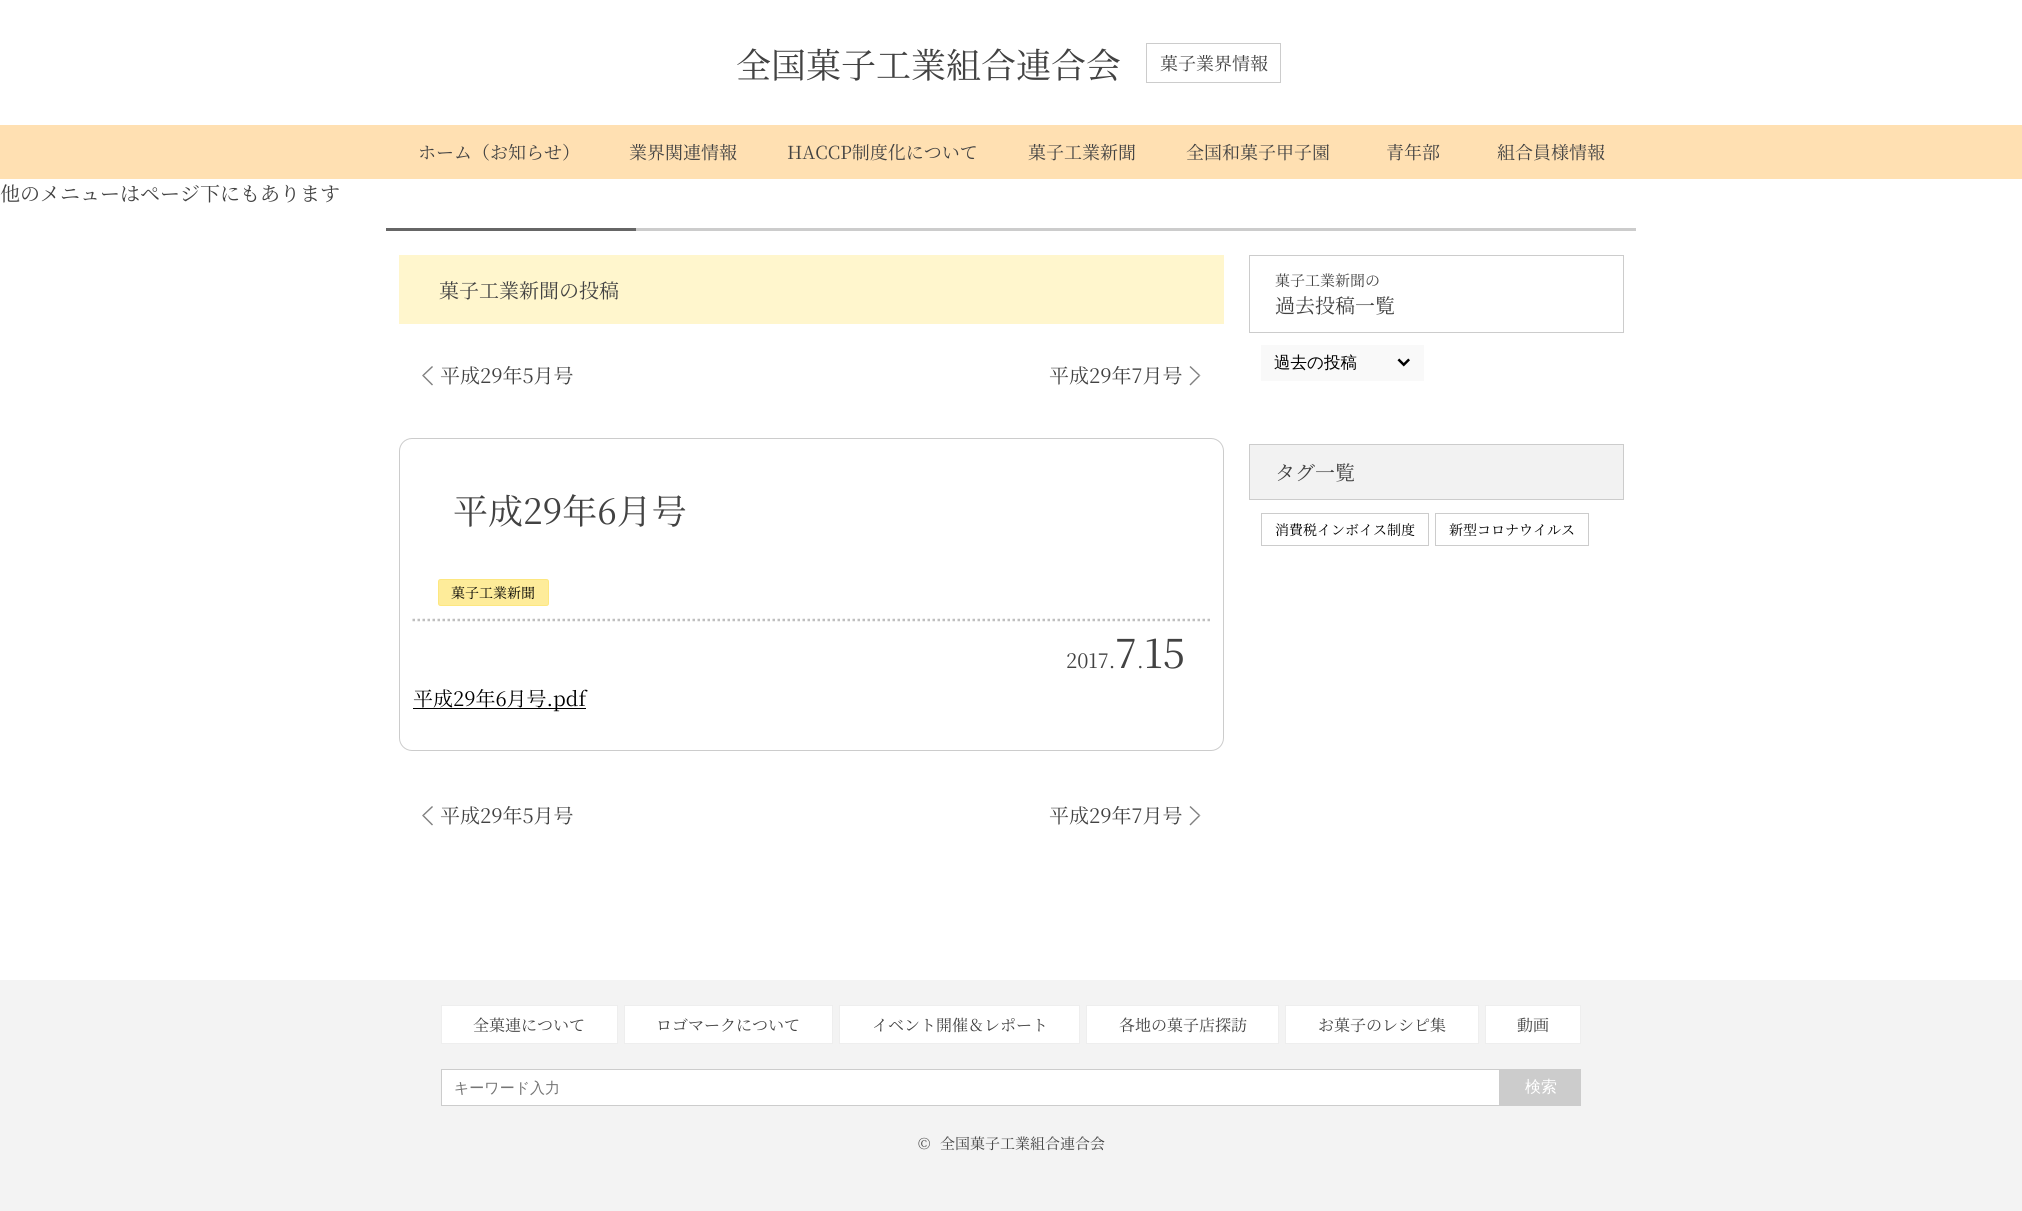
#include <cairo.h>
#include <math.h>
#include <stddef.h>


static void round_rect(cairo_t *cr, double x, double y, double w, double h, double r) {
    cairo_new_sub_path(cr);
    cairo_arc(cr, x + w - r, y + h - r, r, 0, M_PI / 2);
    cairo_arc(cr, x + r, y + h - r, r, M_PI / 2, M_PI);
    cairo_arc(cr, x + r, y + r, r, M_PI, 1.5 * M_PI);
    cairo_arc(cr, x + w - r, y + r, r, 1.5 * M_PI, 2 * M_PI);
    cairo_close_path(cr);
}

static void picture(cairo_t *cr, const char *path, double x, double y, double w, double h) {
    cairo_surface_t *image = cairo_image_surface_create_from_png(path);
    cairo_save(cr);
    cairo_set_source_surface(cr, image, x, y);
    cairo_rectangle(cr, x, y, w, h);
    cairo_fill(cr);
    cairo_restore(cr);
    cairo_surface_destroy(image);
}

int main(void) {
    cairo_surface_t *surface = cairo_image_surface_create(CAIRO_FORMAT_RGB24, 2022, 1211);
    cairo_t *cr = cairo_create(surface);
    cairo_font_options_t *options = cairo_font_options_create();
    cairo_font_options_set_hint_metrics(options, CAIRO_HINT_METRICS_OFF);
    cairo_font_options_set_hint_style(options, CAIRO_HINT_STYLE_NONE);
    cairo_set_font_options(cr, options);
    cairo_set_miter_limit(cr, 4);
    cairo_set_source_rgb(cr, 1, 1, 1);
    cairo_paint(cr);
    cairo_select_font_face(cr, "Noto Serif JP", CAIRO_FONT_SLANT_NORMAL, CAIRO_FONT_WEIGHT_NORMAL);
    cairo_set_font_size(cr, 35);
    cairo_set_source_rgb(cr, 0.259, 0.259, 0.259);
    cairo_move_to(cr, 736, 78);
    cairo_show_text(cr, "全国菓子工業組合連合会");
    cairo_rectangle(cr, 1146.5, 43.5, 134, 39);
    cairo_set_source_rgb(cr, 0.8, 0.8, 0.8);
    cairo_set_line_width(cr, 1);
    cairo_stroke(cr);
    cairo_set_font_size(cr, 18);
    cairo_set_source_rgb(cr, 0.259, 0.259, 0.259);
    cairo_move_to(cr, 1160, 70);
    cairo_show_text(cr, "菓子業界情報");
    cairo_set_source_rgb(cr, 1, 0.878, 0.698);
    cairo_rectangle(cr, 0, 125, 2022, 54);
    cairo_fill(cr);
    cairo_set_source_rgb(cr, 0.259, 0.259, 0.259);
    cairo_move_to(cr, 418, 159);
    cairo_show_text(cr, "ホーム（お知らせ）");
    cairo_move_to(cr, 629, 159);
    cairo_show_text(cr, "業界関連情報");
    cairo_move_to(cr, 787, 159);
    cairo_show_text(cr, "HACCP制度化について");
    cairo_move_to(cr, 1028, 159);
    cairo_show_text(cr, "菓子工業新聞");
    cairo_move_to(cr, 1186, 159);
    cairo_show_text(cr, "全国和菓子甲子園");
    cairo_move_to(cr, 1386, 159);
    cairo_show_text(cr, "青年部");
    cairo_move_to(cr, 1497, 159);
    cairo_show_text(cr, "組合員様情報");
    cairo_set_font_size(cr, 20);
    cairo_move_to(cr, 0, 201);
    cairo_show_text(cr, "他のメニューはページ下にもあります");
    cairo_set_source_rgb(cr, 0.8, 0.8, 0.8);
    cairo_rectangle(cr, 636, 228, 1000, 3);
    cairo_fill(cr);
    cairo_set_source_rgb(cr, 0.4, 0.4, 0.4);
    cairo_rectangle(cr, 386, 228, 250, 3);
    cairo_fill(cr);
    cairo_set_source_rgb(cr, 1, 0.961, 0.804);
    cairo_rectangle(cr, 399, 255, 825, 69);
    cairo_fill(cr);
    cairo_set_source_rgb(cr, 0.259, 0.259, 0.259);
    cairo_move_to(cr, 439, 298);
    cairo_show_text(cr, "菓子工業新聞の投稿");
    cairo_set_source_rgb(cr, 0.502, 0.502, 0.502);
    cairo_new_path(cr);
    cairo_move_to(cr, 432, 385.5);
    cairo_line_to(cr, 422, 375.5);
    cairo_line_to(cr, 424, 375.5);
    cairo_line_to(cr, 433, 384.5);
    cairo_close_path(cr);
    cairo_fill(cr);
    cairo_set_source_rgba(cr, 0, 0, 0, 0.5);
    cairo_new_path(cr);
    cairo_move_to(cr, 422, 375.5);
    cairo_line_to(cr, 432, 366);
    cairo_line_to(cr, 433, 367);
    cairo_line_to(cr, 424, 375.5);
    cairo_close_path(cr);
    cairo_fill(cr);
    cairo_set_source_rgb(cr, 0.259, 0.259, 0.259);
    cairo_move_to(cr, 440, 383);
    cairo_show_text(cr, "平成29年5月号");
    cairo_move_to(cr, 1049, 383);
    cairo_show_text(cr, "平成29年7月号");
    cairo_set_source_rgb(cr, 0.502, 0.502, 0.502);
    cairo_new_path(cr);
    cairo_move_to(cr, 1190.5, 366);
    cairo_line_to(cr, 1200.5, 375.5);
    cairo_line_to(cr, 1198.5, 375.5);
    cairo_line_to(cr, 1189.5, 367);
    cairo_close_path(cr);
    cairo_fill(cr);
    cairo_new_path(cr);
    cairo_move_to(cr, 1200.5, 375.5);
    cairo_line_to(cr, 1190.5, 385.5);
    cairo_line_to(cr, 1189.5, 384.5);
    cairo_line_to(cr, 1198.5, 375.5);
    cairo_close_path(cr);
    cairo_fill(cr);
    round_rect(cr, 399.5, 438.5, 824, 312, 12.5);
    cairo_set_source_rgb(cr, 0.8, 0.8, 0.8);
    cairo_stroke(cr);
    cairo_set_font_size(cr, 35);
    cairo_set_source_rgb(cr, 0.259, 0.259, 0.259);
    cairo_move_to(cr, 453, 524);
    cairo_show_text(cr, "平成29年6月号");
    cairo_new_path(cr);
    cairo_move_to(cr, 412.5, 620);
    cairo_line_to(cr, 1210, 620);
    cairo_set_source_rgb(cr, 0.749, 0.749, 0.749);
    cairo_set_line_width(cr, 2.5);
    cairo_set_dash(cr, (double[]){2.5, 2.5}, 2, 0);
    cairo_stroke(cr);
    cairo_set_source_rgb(cr, 0.996, 0.925, 0.604);
    round_rect(cr, 438, 579, 111, 27, 2.5);
    cairo_fill(cr);
    round_rect(cr, 438.5, 579.5, 110, 26, 2);
    cairo_set_source_rgba(cr, 0.992, 0.847, 0.208, 0.25);
    cairo_set_line_width(cr, 1);
    cairo_set_dash(cr, NULL, 0, 0);
    cairo_stroke(cr);
    cairo_set_font_size(cr, 14);
    cairo_set_source_rgb(cr, 0, 0, 0);
    cairo_move_to(cr, 451, 598);
    cairo_show_text(cr, "菓子工業新聞");
    cairo_set_font_size(cr, 20);
    cairo_set_source_rgb(cr, 0.259, 0.259, 0.259);
    cairo_move_to(cr, 1066, 668);
    cairo_show_text(cr, "2017.");
    cairo_set_font_size(cr, 40);
    cairo_move_to(cr, 1115, 668);
    cairo_show_text(cr, "7");
    cairo_set_font_size(cr, 20);
    cairo_move_to(cr, 1137, 668);
    cairo_show_text(cr, ".");
    cairo_set_font_size(cr, 40);
    cairo_move_to(cr, 1144, 668);
    cairo_show_text(cr, "15");
    cairo_set_source_rgb(cr, 0, 0, 0);
    cairo_rectangle(cr, 413, 708, 173, 1);
    cairo_fill(cr);
    cairo_set_font_size(cr, 20);
    cairo_move_to(cr, 413, 706);
    cairo_show_text(cr, "平成29年6月号.pdf");
    cairo_set_source_rgb(cr, 0.502, 0.502, 0.502);
    cairo_new_path(cr);
    cairo_move_to(cr, 432, 825.5);
    cairo_line_to(cr, 422, 815.5);
    cairo_line_to(cr, 424, 815.5);
    cairo_line_to(cr, 433, 824.5);
    cairo_close_path(cr);
    cairo_fill(cr);
    cairo_set_source_rgba(cr, 0, 0, 0, 0.5);
    cairo_new_path(cr);
    cairo_move_to(cr, 422, 815.5);
    cairo_line_to(cr, 432, 806);
    cairo_line_to(cr, 433, 807);
    cairo_line_to(cr, 424, 815.5);
    cairo_close_path(cr);
    cairo_fill(cr);
    cairo_set_source_rgb(cr, 0.259, 0.259, 0.259);
    cairo_move_to(cr, 440, 823);
    cairo_show_text(cr, "平成29年5月号");
    cairo_move_to(cr, 1049, 823);
    cairo_show_text(cr, "平成29年7月号");
    cairo_set_source_rgb(cr, 0.502, 0.502, 0.502);
    cairo_new_path(cr);
    cairo_move_to(cr, 1190.5, 806);
    cairo_line_to(cr, 1200.5, 815.5);
    cairo_line_to(cr, 1198.5, 815.5);
    cairo_line_to(cr, 1189.5, 807);
    cairo_close_path(cr);
    cairo_fill(cr);
    cairo_new_path(cr);
    cairo_move_to(cr, 1200.5, 815.5);
    cairo_line_to(cr, 1190.5, 825.5);
    cairo_line_to(cr, 1189.5, 824.5);
    cairo_line_to(cr, 1198.5, 815.5);
    cairo_close_path(cr);
    cairo_fill(cr);
    cairo_rectangle(cr, 1249.5, 255.5, 374, 77);
    cairo_set_source_rgb(cr, 0.8, 0.8, 0.8);
    cairo_stroke(cr);
    cairo_set_font_size(cr, 15);
    cairo_set_source_rgb(cr, 0.259, 0.259, 0.259);
    cairo_move_to(cr, 1275, 286);
    cairo_show_text(cr, "菓子工業新聞の");
    cairo_set_font_size(cr, 20);
    cairo_move_to(cr, 1275, 313);
    cairo_show_text(cr, "過去投稿一覧");
    cairo_set_source_rgb(cr, 0.976, 0.976, 0.976);
    cairo_rectangle(cr, 1261, 345, 163, 36);
    cairo_fill(cr);
    picture(cr, "img1.png", 1397, 358, 13, 9);
    cairo_select_font_face(cr, "WenQuanYi Zen Hei Medium", CAIRO_FONT_SLANT_NORMAL, CAIRO_FONT_WEIGHT_NORMAL);
    cairo_set_font_size(cr, 16.5);
    cairo_set_source_rgb(cr, 0, 0, 0);
    cairo_move_to(cr, 1274, 368);
    cairo_show_text(cr, "過去の投稿");
    cairo_set_source_rgb(cr, 0.949, 0.949, 0.949);
    cairo_rectangle(cr, 1249.5, 444.5, 374, 55);
    cairo_fill_preserve(cr);
    cairo_set_source_rgb(cr, 0.8, 0.8, 0.8);
    cairo_stroke(cr);
    cairo_select_font_face(cr, "Noto Serif JP", CAIRO_FONT_SLANT_NORMAL, CAIRO_FONT_WEIGHT_NORMAL);
    cairo_set_font_size(cr, 20);
    cairo_set_source_rgb(cr, 0.259, 0.259, 0.259);
    cairo_move_to(cr, 1275, 480);
    cairo_show_text(cr, "タグ一覧");
    cairo_rectangle(cr, 1261.5, 513.5, 167, 32);
    cairo_set_source_rgb(cr, 0.8, 0.8, 0.8);
    cairo_stroke(cr);
    cairo_set_font_size(cr, 14);
    cairo_set_source_rgb(cr, 0, 0, 0);
    cairo_move_to(cr, 1275, 535);
    cairo_show_text(cr, "消費税インボイス制度");
    cairo_rectangle(cr, 1435.5, 513.5, 153, 32);
    cairo_set_source_rgb(cr, 0.8, 0.8, 0.8);
    cairo_stroke(cr);
    cairo_set_source_rgb(cr, 0, 0, 0);
    cairo_move_to(cr, 1449, 535);
    cairo_show_text(cr, "新型コロナウイルス");
    cairo_set_source_rgb(cr, 0.953, 0.953, 0.953);
    cairo_rectangle(cr, 0, 980, 2022, 231);
    cairo_fill(cr);
    cairo_set_source_rgb(cr, 1, 1, 1);
    cairo_rectangle(cr, 441.5, 1005.5, 176, 38);
    cairo_fill_preserve(cr);
    cairo_set_source_rgb(cr, 0.933, 0.933, 0.933);
    cairo_stroke(cr);
    cairo_set_font_size(cr, 16);
    cairo_set_source_rgb(cr, 0.259, 0.259, 0.259);
    cairo_move_to(cr, 473, 1031);
    cairo_show_text(cr, "全菓連について");
    cairo_set_source_rgb(cr, 1, 1, 1);
    cairo_rectangle(cr, 624.5, 1005.5, 208, 38);
    cairo_fill_preserve(cr);
    cairo_set_source_rgb(cr, 0.933, 0.933, 0.933);
    cairo_stroke(cr);
    cairo_set_source_rgb(cr, 0.259, 0.259, 0.259);
    cairo_move_to(cr, 656, 1031);
    cairo_show_text(cr, "ロゴマークについて");
    cairo_set_source_rgb(cr, 1, 1, 1);
    cairo_rectangle(cr, 839.5, 1005.5, 240, 38);
    cairo_fill_preserve(cr);
    cairo_set_source_rgb(cr, 0.933, 0.933, 0.933);
    cairo_stroke(cr);
    cairo_set_source_rgb(cr, 0.259, 0.259, 0.259);
    cairo_move_to(cr, 872, 1031);
    cairo_show_text(cr, "イベント開催＆レポート");
    cairo_set_source_rgb(cr, 1, 1, 1);
    cairo_rectangle(cr, 1086.5, 1005.5, 192, 38);
    cairo_fill_preserve(cr);
    cairo_set_source_rgb(cr, 0.933, 0.933, 0.933);
    cairo_stroke(cr);
    cairo_set_source_rgb(cr, 0.259, 0.259, 0.259);
    cairo_move_to(cr, 1119, 1031);
    cairo_show_text(cr, "各地の菓子店探訪");
    cairo_set_source_rgb(cr, 1, 1, 1);
    cairo_rectangle(cr, 1285.5, 1005.5, 193, 38);
    cairo_fill_preserve(cr);
    cairo_set_source_rgb(cr, 0.933, 0.933, 0.933);
    cairo_stroke(cr);
    cairo_set_source_rgb(cr, 0.259, 0.259, 0.259);
    cairo_move_to(cr, 1318, 1031);
    cairo_show_text(cr, "お菓子のレシピ集");
    cairo_set_source_rgb(cr, 1, 1, 1);
    cairo_rectangle(cr, 1485.5, 1005.5, 95, 38);
    cairo_fill_preserve(cr);
    cairo_set_source_rgb(cr, 0.933, 0.933, 0.933);
    cairo_stroke(cr);
    cairo_set_source_rgb(cr, 0.259, 0.259, 0.259);
    cairo_move_to(cr, 1517, 1031);
    cairo_show_text(cr, "動画");
    cairo_set_source_rgb(cr, 1, 1, 1);
    cairo_rectangle(cr, 441.5, 1069.5, 1058, 36);
    cairo_fill_preserve(cr);
    cairo_set_source_rgb(cr, 0.8, 0.8, 0.8);
    cairo_stroke(cr);
    cairo_select_font_face(cr, "WenQuanYi Zen Hei Medium", CAIRO_FONT_SLANT_NORMAL, CAIRO_FONT_WEIGHT_NORMAL);
    cairo_set_font_size(cr, 15);
    cairo_set_source_rgb(cr, 0.459, 0.459, 0.459);
    cairo_move_to(cr, 454, 1093);
    cairo_show_text(cr, "キーワード入力");
    cairo_set_source_rgb(cr, 0.8, 0.8, 0.8);
    cairo_rectangle(cr, 1500, 1069, 81, 37);
    cairo_fill(cr);
    cairo_set_font_size(cr, 16);
    cairo_set_source_rgb(cr, 1, 1, 1);
    cairo_move_to(cr, 1525, 1092);
    cairo_show_text(cr, "検索");
    cairo_select_font_face(cr, "Noto Serif JP", CAIRO_FONT_SLANT_NORMAL, CAIRO_FONT_WEIGHT_NORMAL);
    cairo_set_font_size(cr, 15);
    cairo_set_source_rgb(cr, 0.259, 0.259, 0.259);
    cairo_move_to(cr, 918, 1149);
    cairo_show_text(cr, "©");
    cairo_move_to(cr, 940, 1149);
    cairo_show_text(cr, "全国菓子工業組合連合会");
    cairo_surface_write_to_png(surface, "page.png");
    cairo_font_options_destroy(options);
    cairo_destroy(cr);
    cairo_surface_destroy(surface);
    return 0;
}
